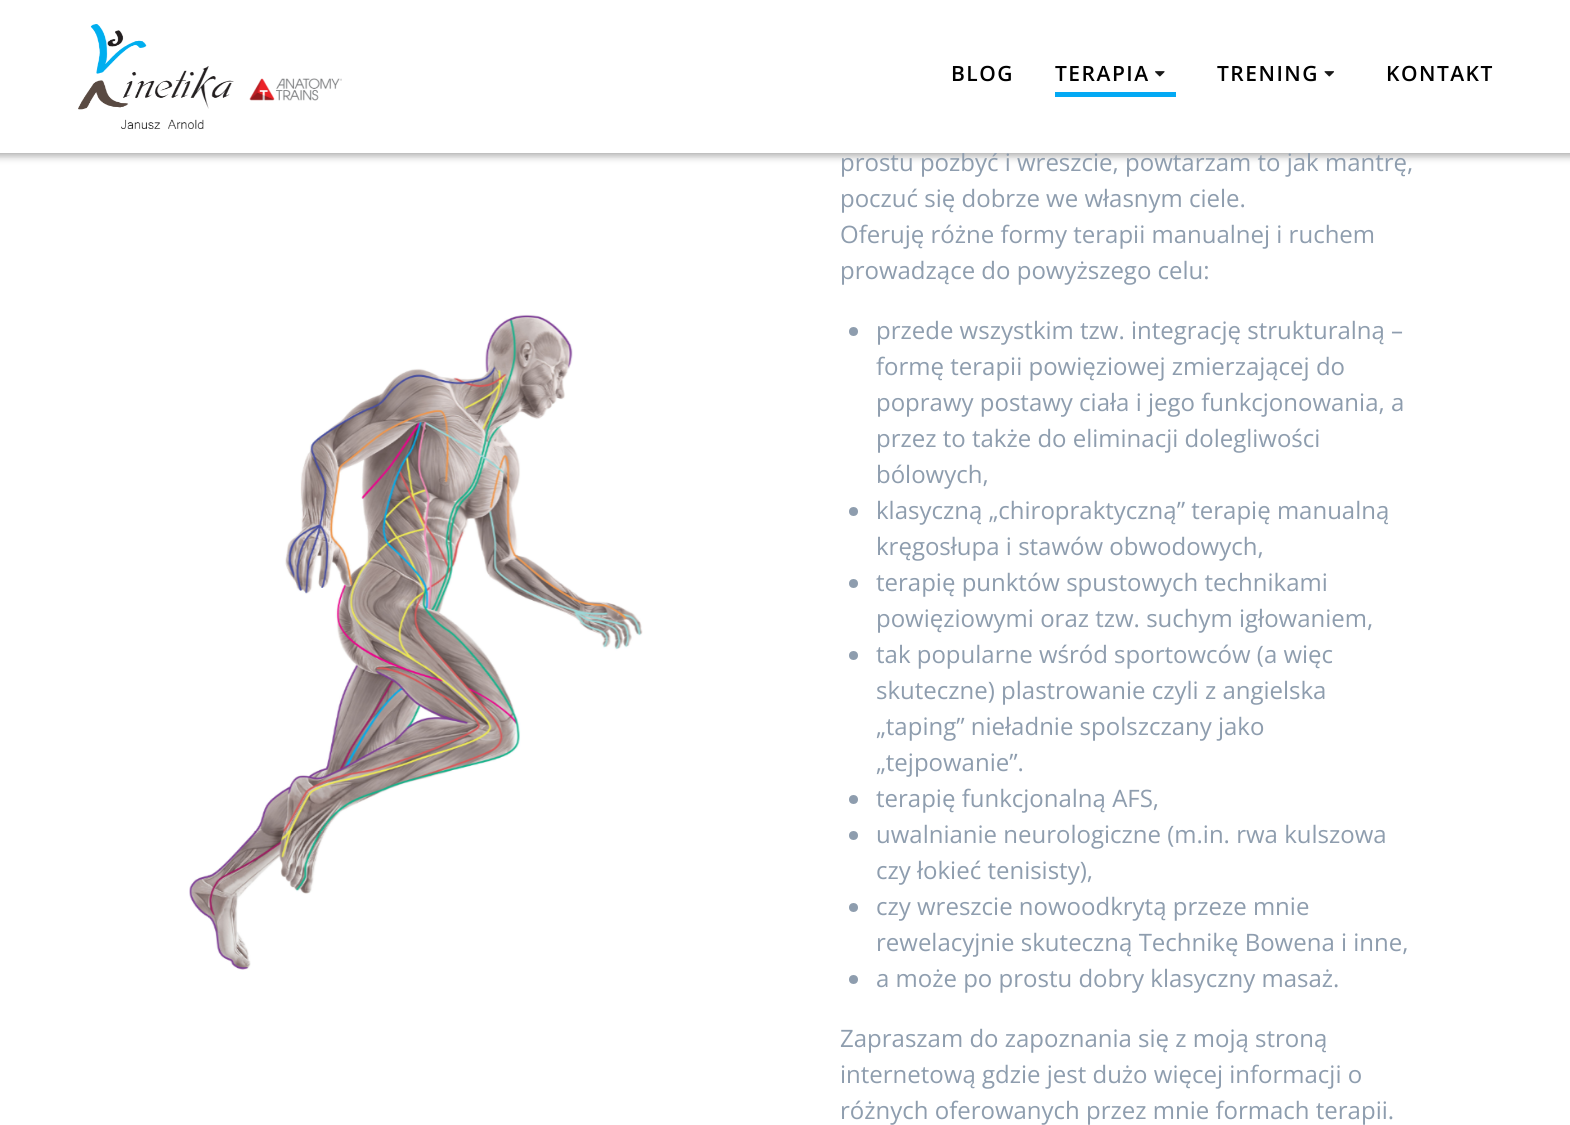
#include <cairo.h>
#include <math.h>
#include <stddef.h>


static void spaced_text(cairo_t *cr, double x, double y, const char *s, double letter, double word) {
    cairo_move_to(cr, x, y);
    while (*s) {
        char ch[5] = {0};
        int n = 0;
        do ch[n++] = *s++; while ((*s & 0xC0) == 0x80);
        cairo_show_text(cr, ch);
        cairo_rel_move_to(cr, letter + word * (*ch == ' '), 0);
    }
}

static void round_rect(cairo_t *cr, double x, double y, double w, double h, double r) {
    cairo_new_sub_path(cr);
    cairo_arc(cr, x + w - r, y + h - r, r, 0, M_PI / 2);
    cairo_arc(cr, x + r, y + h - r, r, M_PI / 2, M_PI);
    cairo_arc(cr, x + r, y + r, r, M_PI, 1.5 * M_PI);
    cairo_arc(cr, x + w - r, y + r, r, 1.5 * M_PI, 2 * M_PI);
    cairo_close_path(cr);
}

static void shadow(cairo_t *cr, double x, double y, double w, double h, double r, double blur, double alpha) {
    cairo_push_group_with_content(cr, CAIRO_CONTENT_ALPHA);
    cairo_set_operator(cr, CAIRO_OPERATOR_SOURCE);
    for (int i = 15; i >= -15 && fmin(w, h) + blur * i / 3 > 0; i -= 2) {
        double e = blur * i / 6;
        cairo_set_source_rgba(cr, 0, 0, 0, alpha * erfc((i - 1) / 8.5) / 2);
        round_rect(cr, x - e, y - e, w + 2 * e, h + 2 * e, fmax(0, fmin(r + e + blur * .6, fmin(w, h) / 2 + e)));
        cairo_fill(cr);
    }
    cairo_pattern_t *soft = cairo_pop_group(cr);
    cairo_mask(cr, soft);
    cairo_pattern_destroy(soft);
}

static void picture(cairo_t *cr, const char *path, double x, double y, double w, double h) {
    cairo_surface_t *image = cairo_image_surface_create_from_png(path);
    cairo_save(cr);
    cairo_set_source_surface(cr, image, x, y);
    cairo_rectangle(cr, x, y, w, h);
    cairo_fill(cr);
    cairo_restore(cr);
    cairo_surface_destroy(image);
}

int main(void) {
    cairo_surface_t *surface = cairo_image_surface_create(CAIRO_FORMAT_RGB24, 1570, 1125);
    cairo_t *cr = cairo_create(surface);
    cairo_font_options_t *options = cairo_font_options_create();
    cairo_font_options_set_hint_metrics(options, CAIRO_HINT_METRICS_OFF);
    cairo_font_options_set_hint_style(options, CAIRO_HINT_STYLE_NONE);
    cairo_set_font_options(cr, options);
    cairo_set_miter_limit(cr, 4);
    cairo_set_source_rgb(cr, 1, 1, 1);
    cairo_paint(cr);
    picture(cr, "img1.png", 189, 314, 454, 656);
    cairo_set_source_rgb(cr, 0, 0, 0);
    shadow(cr, -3, -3, 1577, 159, 0, 4, 0.33);
    cairo_select_font_face(cr, "Open Sans", CAIRO_FONT_SLANT_NORMAL, CAIRO_FONT_WEIGHT_NORMAL);
    cairo_set_font_size(cr, 24);
    cairo_set_source_rgb(cr, 0.557, 0.616, 0.682);
    cairo_move_to(cr, 840, 171);
    cairo_show_text(cr, "prostu pozbyć i wreszcie, powtarzam to jak mantrę,");
    cairo_set_source_rgb(cr, 1, 1, 1);
    cairo_rectangle(cr, 0, 0, 1570, 153);
    cairo_fill(cr);
    picture(cr, "img2.png", 78, 24, 264, 105);
    cairo_select_font_face(cr, "Open Sans SemiBold", CAIRO_FONT_SLANT_NORMAL, CAIRO_FONT_WEIGHT_NORMAL);
    cairo_set_font_size(cr, 21);
    cairo_set_source_rgb(cr, 0, 0, 0);
    spaced_text(cr, 951, 81, "BLOG", 1.5, 0);
    cairo_set_source_rgb(cr, 0.012, 0.663, 0.957);
    cairo_rectangle(cr, 1055, 92, 121, 5);
    cairo_fill(cr);
    cairo_set_source_rgb(cr, 0, 0, 0);
    spaced_text(cr, 1055, 81, "TERAPIA", 1.5, 0);
    picture(cr, "img3.png", 1155, 71, 10, 6);
    spaced_text(cr, 1217, 81, "TRENING", 1.5, 0);
    picture(cr, "img4.png", 1324, 71, 10, 6);
    spaced_text(cr, 1386, 81, "KONTAKT", 1.5, 0);
    cairo_select_font_face(cr, "Open Sans", CAIRO_FONT_SLANT_NORMAL, CAIRO_FONT_WEIGHT_NORMAL);
    cairo_set_font_size(cr, 24);
    cairo_set_source_rgb(cr, 0.557, 0.616, 0.682);
    cairo_move_to(cr, 840, 207);
    cairo_show_text(cr, "poczuć się dobrze we własnym ciele.");
    cairo_move_to(cr, 840, 243);
    cairo_show_text(cr, "Oferuję różne formy terapii manualnej i ruchem");
    cairo_move_to(cr, 840, 279);
    cairo_show_text(cr, "prowadzące do powyższego celu:");
    cairo_new_path(cr);
    cairo_arc(cr, 853.5, 331.5, 4.5, 0, 2 * M_PI);
    cairo_fill(cr);
    cairo_move_to(cr, 876, 339);
    cairo_show_text(cr, "przede wszystkim tzw. integrację strukturalną –");
    cairo_move_to(cr, 876, 375);
    cairo_show_text(cr, "formę terapii powięziowej zmierzającej do");
    cairo_move_to(cr, 876, 411);
    cairo_show_text(cr, "poprawy postawy ciała i jego funkcjonowania, a");
    cairo_move_to(cr, 876, 447);
    cairo_show_text(cr, "przez to także do eliminacji dolegliwości");
    cairo_move_to(cr, 876, 483);
    cairo_show_text(cr, "bólowych,");
    cairo_new_path(cr);
    cairo_arc(cr, 853.5, 511.5, 4.5, 0, 2 * M_PI);
    cairo_fill(cr);
    cairo_move_to(cr, 876, 519);
    cairo_show_text(cr, "klasyczną „chiropraktyczną” terapię manualną");
    cairo_move_to(cr, 876, 555);
    cairo_show_text(cr, "kręgosłupa i stawów obwodowych,");
    cairo_new_path(cr);
    cairo_arc(cr, 853.5, 583.5, 4.5, 0, 2 * M_PI);
    cairo_fill(cr);
    cairo_move_to(cr, 876, 591);
    cairo_show_text(cr, "terapię punktów spustowych technikami");
    cairo_move_to(cr, 876, 627);
    cairo_show_text(cr, "powięziowymi oraz tzw. suchym igłowaniem,");
    cairo_new_path(cr);
    cairo_arc(cr, 853.5, 655.5, 4.5, 0, 2 * M_PI);
    cairo_fill(cr);
    cairo_move_to(cr, 876, 663);
    cairo_show_text(cr, "tak popularne wśród sportowców (a więc");
    cairo_move_to(cr, 876, 699);
    cairo_show_text(cr, "skuteczne) plastrowanie czyli z angielska");
    cairo_move_to(cr, 876, 735);
    cairo_show_text(cr, "„taping” nieładnie spolszczany jako");
    cairo_move_to(cr, 876, 771);
    cairo_show_text(cr, "„tejpowanie”.");
    cairo_new_path(cr);
    cairo_arc(cr, 853.5, 799.5, 4.5, 0, 2 * M_PI);
    cairo_fill(cr);
    cairo_move_to(cr, 876, 807);
    cairo_show_text(cr, "terapię funkcjonalną AFS,");
    cairo_new_path(cr);
    cairo_arc(cr, 853.5, 835.5, 4.5, 0, 2 * M_PI);
    cairo_fill(cr);
    cairo_move_to(cr, 876, 843);
    cairo_show_text(cr, "uwalnianie neurologiczne (m.in. rwa kulszowa");
    cairo_move_to(cr, 876, 879);
    cairo_show_text(cr, "czy łokieć tenisisty),");
    cairo_new_path(cr);
    cairo_arc(cr, 853.5, 907.5, 4.5, 0, 2 * M_PI);
    cairo_fill(cr);
    cairo_move_to(cr, 876, 915);
    cairo_show_text(cr, "czy wreszcie nowoodkrytą przeze mnie");
    cairo_move_to(cr, 876, 951);
    cairo_show_text(cr, "rewelacyjnie skuteczną Technikę Bowena i inne,");
    cairo_new_path(cr);
    cairo_arc(cr, 853.5, 979.5, 4.5, 0, 2 * M_PI);
    cairo_fill(cr);
    cairo_move_to(cr, 876, 987);
    cairo_show_text(cr, "a może po prostu dobry klasyczny masaż.");
    cairo_move_to(cr, 840, 1047);
    cairo_show_text(cr, "Zapraszam do zapoznania się z moją stroną");
    cairo_move_to(cr, 840, 1083);
    cairo_show_text(cr, "internetową gdzie jest dużo więcej informacji o");
    cairo_move_to(cr, 840, 1119);
    cairo_show_text(cr, "różnych oferowanych przez mnie formach terapii.");
    cairo_surface_write_to_png(surface, "page.png");
    cairo_font_options_destroy(options);
    cairo_destroy(cr);
    cairo_surface_destroy(surface);
    return 0;
}
